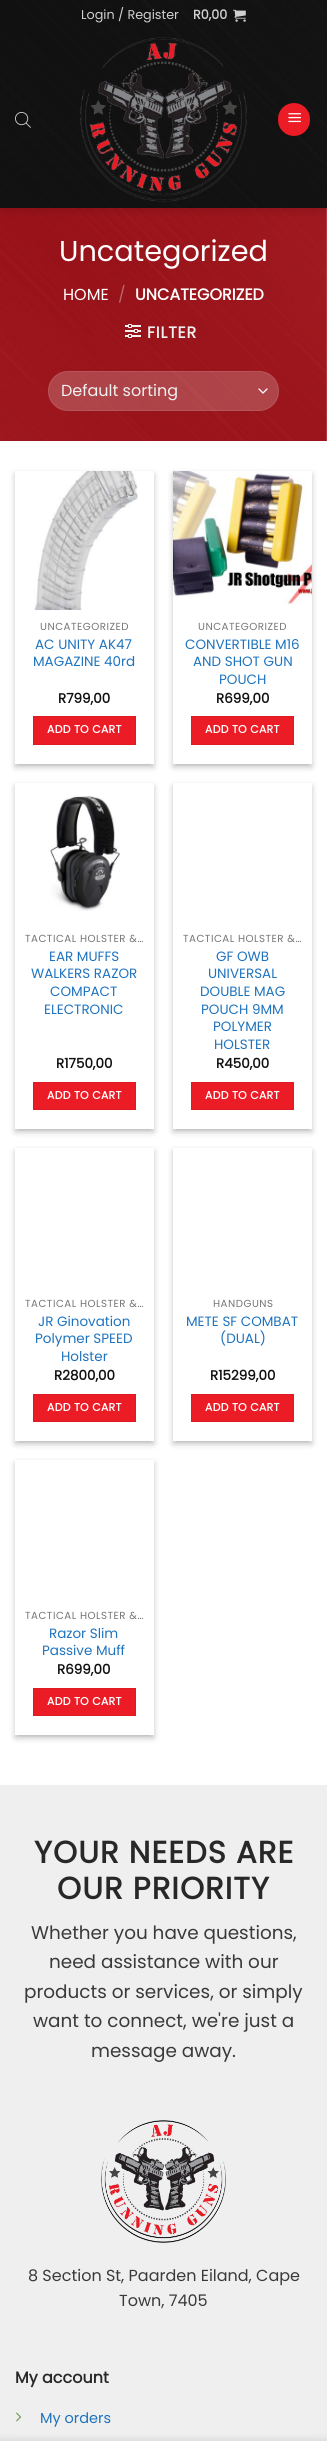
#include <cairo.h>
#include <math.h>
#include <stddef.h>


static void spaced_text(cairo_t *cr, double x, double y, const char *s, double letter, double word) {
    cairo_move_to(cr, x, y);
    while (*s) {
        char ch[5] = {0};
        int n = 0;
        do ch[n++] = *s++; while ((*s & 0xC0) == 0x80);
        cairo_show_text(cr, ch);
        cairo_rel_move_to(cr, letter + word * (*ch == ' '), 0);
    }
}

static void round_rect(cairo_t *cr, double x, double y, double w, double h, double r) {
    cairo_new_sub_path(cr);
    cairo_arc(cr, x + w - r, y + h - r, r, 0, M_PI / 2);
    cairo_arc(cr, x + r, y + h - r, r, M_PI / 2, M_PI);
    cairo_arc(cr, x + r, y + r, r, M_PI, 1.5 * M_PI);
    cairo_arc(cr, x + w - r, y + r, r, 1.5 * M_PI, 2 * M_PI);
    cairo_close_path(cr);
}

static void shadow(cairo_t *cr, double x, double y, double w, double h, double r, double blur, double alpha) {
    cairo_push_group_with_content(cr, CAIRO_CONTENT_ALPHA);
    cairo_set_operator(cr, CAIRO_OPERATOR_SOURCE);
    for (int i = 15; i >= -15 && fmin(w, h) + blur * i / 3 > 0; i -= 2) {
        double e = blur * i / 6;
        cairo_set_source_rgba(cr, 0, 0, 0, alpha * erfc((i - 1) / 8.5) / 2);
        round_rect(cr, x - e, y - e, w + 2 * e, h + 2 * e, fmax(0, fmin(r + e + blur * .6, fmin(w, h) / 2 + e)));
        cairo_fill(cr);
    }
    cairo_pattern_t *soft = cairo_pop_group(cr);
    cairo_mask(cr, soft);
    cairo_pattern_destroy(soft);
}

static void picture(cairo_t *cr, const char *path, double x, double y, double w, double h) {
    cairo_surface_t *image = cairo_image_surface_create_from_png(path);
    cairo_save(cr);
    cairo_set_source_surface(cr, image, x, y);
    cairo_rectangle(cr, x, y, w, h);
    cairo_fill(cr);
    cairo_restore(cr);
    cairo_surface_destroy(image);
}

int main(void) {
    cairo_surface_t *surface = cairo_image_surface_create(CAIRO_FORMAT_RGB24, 327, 2441);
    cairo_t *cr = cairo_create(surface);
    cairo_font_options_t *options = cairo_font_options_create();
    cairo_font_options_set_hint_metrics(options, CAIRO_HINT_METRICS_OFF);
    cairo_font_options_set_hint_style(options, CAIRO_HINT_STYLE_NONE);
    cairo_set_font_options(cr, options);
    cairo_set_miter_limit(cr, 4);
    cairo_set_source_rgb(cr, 1, 1, 1);
    cairo_paint(cr);
    picture(cr, "img6.png", 0, 208, 327, 233);
    cairo_set_source_rgb(cr, 0, 0, 0);
    shadow(cr, 1, 1, 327, 208, 0, 5, 0.15);
    picture(cr, "img1.png", 0, 0, 327, 208);
    cairo_select_font_face(cr, "Poppins", CAIRO_FONT_SLANT_NORMAL, CAIRO_FONT_WEIGHT_NORMAL);
    cairo_set_font_size(cr, 12.75);
    cairo_set_source_rgb(cr, 0.816, 0.816, 0.816);
    cairo_move_to(cr, 81, 19);
    cairo_show_text(cr, "Login / Register");
    cairo_select_font_face(cr, "Poppins", CAIRO_FONT_SLANT_NORMAL, CAIRO_FONT_WEIGHT_BOLD);
    cairo_move_to(cr, 193, 19);
    cairo_show_text(cr, "R0,00");
    picture(cr, "img2.png", 233, 9, 13, 13);
    picture(cr, "img3.png", 15, 112, 16, 16);
    picture(cr, "img4.png", 80, 37, 167, 165);
    cairo_set_source_rgb(cr, 0.918, 0.11, 0.149);
    round_rect(cr, 278, 103, 32, 33, 16);
    cairo_fill(cr);
    cairo_rectangle(cr, 278.5, 103.5, 31, 32);
    cairo_set_source_rgba(cr, 0, 0, 0, 0.05);
    cairo_set_line_width(cr, 1);
    cairo_stroke(cr);
    picture(cr, "img5.png", 288, 113, 13, 10);
    cairo_select_font_face(cr, "Poppins", CAIRO_FONT_SLANT_NORMAL, CAIRO_FONT_WEIGHT_NORMAL);
    cairo_set_font_size(cr, 28.75);
    cairo_set_source_rgb(cr, 1, 1, 1);
    cairo_move_to(cr, 59, 261);
    cairo_show_text(cr, "Uncategorized");
    cairo_set_font_size(cr, 16);
    cairo_move_to(cr, 63, 300);
    cairo_show_text(cr, "HOME");
    cairo_set_source_rgb(cr, 0.737, 0.396, 0.416);
    cairo_move_to(cr, 118, 300);
    cairo_show_text(cr, "/");
    cairo_select_font_face(cr, "Poppins", CAIRO_FONT_SLANT_NORMAL, CAIRO_FONT_WEIGHT_BOLD);
    cairo_set_source_rgb(cr, 1, 1, 1);
    cairo_move_to(cr, 135, 300);
    cairo_show_text(cr, "UNCATEGORIZED");
    picture(cr, "img7.png", 125, 324, 16, 14);
    cairo_set_source_rgb(cr, 0.945, 0.945, 0.945);
    spaced_text(cr, 147, 338, "FILTER", 0.75, 0);
    cairo_set_source_rgba(cr, 1, 1, 1, 0.2);
    round_rect(cr, 48, 371, 231, 40, 20);
    cairo_fill(cr);
    cairo_new_path(cr);
    cairo_move_to(cr, 259, 389);
    cairo_line_to(cr, 263, 393);
    cairo_line_to(cr, 267, 389);
    cairo_set_source_rgb(cr, 1, 1, 1);
    cairo_set_line_width(cr, 1.3);
    cairo_set_line_cap(cr, CAIRO_LINE_CAP_ROUND);
    cairo_set_line_join(cr, CAIRO_LINE_JOIN_ROUND);
    cairo_stroke(cr);
    round_rect(cr, 48.5, 371.5, 230, 39, 19.5);
    cairo_set_source_rgba(cr, 1, 1, 1, 0.09);
    cairo_set_line_width(cr, 1);
    cairo_set_line_cap(cr, CAIRO_LINE_CAP_BUTT);
    cairo_set_line_join(cr, CAIRO_LINE_JOIN_MITER);
    cairo_stroke(cr);
    cairo_select_font_face(cr, "Poppins", CAIRO_FONT_SLANT_NORMAL, CAIRO_FONT_WEIGHT_NORMAL);
    cairo_set_source_rgb(cr, 0.945, 0.945, 0.945);
    cairo_move_to(cr, 61, 396);
    cairo_show_text(cr, "Default sorting");
    cairo_save(cr);
    cairo_set_fill_rule(cr, CAIRO_FILL_RULE_EVEN_ODD);
    cairo_new_path(cr);
    cairo_move_to(cr, 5, 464);
    cairo_line_to(cr, 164, 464);
    cairo_line_to(cr, 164, 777);
    cairo_line_to(cr, 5, 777);
    cairo_close_path(cr);
    cairo_move_to(cr, 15, 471);
    cairo_line_to(cr, 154, 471);
    cairo_line_to(cr, 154, 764);
    cairo_line_to(cr, 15, 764);
    cairo_close_path(cr);
    cairo_clip(cr);
    cairo_set_source_rgb(cr, 0, 0, 0);
    shadow(cr, 15, 474, 139, 293, 0, 3, 0.23);
    cairo_restore(cr);
    cairo_save(cr);
    cairo_rectangle(cr, 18, 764, 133, 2);
    cairo_clip(cr);
    cairo_set_source_rgb(cr, 0, 0, 0);
    shadow(cr, 19, 478, 131, 285, 0, 3, 0.16);
    cairo_restore(cr);
    picture(cr, "img8.png", 34, 471, 104, 139);
    cairo_set_font_size(cr, 10.25);
    cairo_set_source_rgb(cr, 0.459, 0.459, 0.459);
    spaced_text(cr, 40, 630, "UNCATEGORIZED", 0.5, 0);
    cairo_set_font_size(cr, 13.5);
    cairo_set_source_rgb(cr, 0.118, 0.451, 0.745);
    cairo_move_to(cr, 35, 649);
    cairo_show_text(cr, "AC UNITY AK47");
    cairo_move_to(cr, 33, 666);
    cairo_show_text(cr, "MAGAZINE 40rd");
    cairo_select_font_face(cr, "Poppins", CAIRO_FONT_SLANT_NORMAL, CAIRO_FONT_WEIGHT_BOLD);
    cairo_set_source_rgb(cr, 0.067, 0.067, 0.067);
    cairo_move_to(cr, 58, 703);
    cairo_show_text(cr, "R799,00");
    cairo_set_source_rgb(cr, 0.918, 0.11, 0.145);
    cairo_rectangle(cr, 33.5, 716.5, 102, 28);
    cairo_fill_preserve(cr);
    cairo_set_source_rgb(cr, 0.871, 0.106, 0.137);
    cairo_stroke(cr);
    cairo_set_font_size(cr, 11);
    cairo_set_source_rgb(cr, 1, 1, 1);
    spaced_text(cr, 47, 733, "ADD TO CART", 0.25, 0);
    cairo_save(cr);
    cairo_set_fill_rule(cr, CAIRO_FILL_RULE_EVEN_ODD);
    cairo_new_path(cr);
    cairo_move_to(cr, 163, 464);
    cairo_line_to(cr, 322, 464);
    cairo_line_to(cr, 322, 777);
    cairo_line_to(cr, 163, 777);
    cairo_close_path(cr);
    cairo_move_to(cr, 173, 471);
    cairo_line_to(cr, 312, 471);
    cairo_line_to(cr, 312, 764);
    cairo_line_to(cr, 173, 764);
    cairo_close_path(cr);
    cairo_clip(cr);
    cairo_set_source_rgb(cr, 0, 0, 0);
    shadow(cr, 173, 474, 139, 293, 0, 3, 0.23);
    cairo_restore(cr);
    cairo_save(cr);
    cairo_rectangle(cr, 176, 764, 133, 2);
    cairo_clip(cr);
    cairo_set_source_rgb(cr, 0, 0, 0);
    shadow(cr, 177, 478, 131, 285, 0, 3, 0.16);
    cairo_restore(cr);
    picture(cr, "img9.png", 173, 471, 139, 134);
    cairo_select_font_face(cr, "Poppins", CAIRO_FONT_SLANT_NORMAL, CAIRO_FONT_WEIGHT_NORMAL);
    cairo_set_font_size(cr, 10.25);
    cairo_set_source_rgb(cr, 0.459, 0.459, 0.459);
    spaced_text(cr, 198, 630, "UNCATEGORIZED", 0.5, 0);
    cairo_set_font_size(cr, 13.5);
    cairo_set_source_rgb(cr, 0.118, 0.451, 0.745);
    cairo_move_to(cr, 185, 649);
    cairo_show_text(cr, "CONVERTIBLE M16");
    cairo_move_to(cr, 193, 666);
    cairo_show_text(cr, "AND SHOT GUN");
    cairo_move_to(cr, 219, 684);
    cairo_show_text(cr, "POUCH");
    cairo_select_font_face(cr, "Poppins", CAIRO_FONT_SLANT_NORMAL, CAIRO_FONT_WEIGHT_BOLD);
    cairo_set_source_rgb(cr, 0.067, 0.067, 0.067);
    cairo_move_to(cr, 216, 703);
    cairo_show_text(cr, "R699,00");
    cairo_set_source_rgb(cr, 0.918, 0.11, 0.145);
    cairo_rectangle(cr, 191.5, 716.5, 102, 28);
    cairo_fill_preserve(cr);
    cairo_set_source_rgb(cr, 0.871, 0.106, 0.137);
    cairo_stroke(cr);
    cairo_set_font_size(cr, 11);
    cairo_set_source_rgb(cr, 1, 1, 1);
    spaced_text(cr, 205, 733, "ADD TO CART", 0.25, 0);
    cairo_save(cr);
    cairo_set_fill_rule(cr, CAIRO_FILL_RULE_EVEN_ODD);
    cairo_new_path(cr);
    cairo_move_to(cr, 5, 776);
    cairo_line_to(cr, 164, 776);
    cairo_line_to(cr, 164, 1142);
    cairo_line_to(cr, 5, 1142);
    cairo_close_path(cr);
    cairo_move_to(cr, 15, 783);
    cairo_line_to(cr, 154, 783);
    cairo_line_to(cr, 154, 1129);
    cairo_line_to(cr, 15, 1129);
    cairo_close_path(cr);
    cairo_clip(cr);
    cairo_set_source_rgb(cr, 0, 0, 0);
    shadow(cr, 15, 786, 139, 346, 0, 3, 0.23);
    cairo_restore(cr);
    cairo_save(cr);
    cairo_rectangle(cr, 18, 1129, 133, 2);
    cairo_clip(cr);
    cairo_set_source_rgb(cr, 0, 0, 0);
    shadow(cr, 19, 790, 131, 338, 0, 3, 0.16);
    cairo_restore(cr);
    picture(cr, "img10.png", 50, 795, 70, 116);
    cairo_select_font_face(cr, "Poppins", CAIRO_FONT_SLANT_NORMAL, CAIRO_FONT_WEIGHT_NORMAL);
    cairo_set_font_size(cr, 10.25);
    cairo_set_source_rgb(cr, 0.459, 0.459, 0.459);
    spaced_text(cr, 25, 942, "TACTICAL HOLSTER &…", 0.5, 0);
    cairo_set_font_size(cr, 13.5);
    cairo_set_source_rgb(cr, 0.118, 0.451, 0.745);
    cairo_move_to(cr, 49, 961);
    cairo_show_text(cr, "EAR MUFFS");
    cairo_move_to(cr, 31, 978);
    cairo_show_text(cr, "WALKERS RAZOR");
    cairo_move_to(cr, 50, 996);
    cairo_show_text(cr, "COMPACT");
    cairo_move_to(cr, 44, 1014);
    cairo_show_text(cr, "ELECTRONIC");
    cairo_select_font_face(cr, "Poppins", CAIRO_FONT_SLANT_NORMAL, CAIRO_FONT_WEIGHT_BOLD);
    cairo_set_source_rgb(cr, 0.067, 0.067, 0.067);
    cairo_move_to(cr, 56, 1068);
    cairo_show_text(cr, "R1750,00");
    cairo_set_source_rgb(cr, 0.918, 0.11, 0.145);
    cairo_rectangle(cr, 33.5, 1082.5, 102, 27);
    cairo_fill_preserve(cr);
    cairo_set_source_rgb(cr, 0.871, 0.106, 0.137);
    cairo_stroke(cr);
    cairo_set_font_size(cr, 11);
    cairo_set_source_rgb(cr, 1, 1, 1);
    spaced_text(cr, 47, 1099, "ADD TO CART", 0.25, 0);
    cairo_save(cr);
    cairo_set_fill_rule(cr, CAIRO_FILL_RULE_EVEN_ODD);
    cairo_new_path(cr);
    cairo_move_to(cr, 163, 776);
    cairo_line_to(cr, 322, 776);
    cairo_line_to(cr, 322, 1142);
    cairo_line_to(cr, 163, 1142);
    cairo_close_path(cr);
    cairo_move_to(cr, 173, 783);
    cairo_line_to(cr, 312, 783);
    cairo_line_to(cr, 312, 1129);
    cairo_line_to(cr, 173, 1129);
    cairo_close_path(cr);
    cairo_clip(cr);
    cairo_set_source_rgb(cr, 0, 0, 0);
    shadow(cr, 173, 786, 139, 346, 0, 3, 0.23);
    cairo_restore(cr);
    cairo_save(cr);
    cairo_rectangle(cr, 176, 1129, 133, 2);
    cairo_clip(cr);
    cairo_set_source_rgb(cr, 0, 0, 0);
    shadow(cr, 177, 790, 131, 338, 0, 3, 0.16);
    cairo_restore(cr);
    cairo_select_font_face(cr, "Poppins", CAIRO_FONT_SLANT_NORMAL, CAIRO_FONT_WEIGHT_NORMAL);
    cairo_set_font_size(cr, 10.25);
    cairo_set_source_rgb(cr, 0.459, 0.459, 0.459);
    spaced_text(cr, 183, 942, "TACTICAL HOLSTER &…", 0.5, 0);
    cairo_set_font_size(cr, 13.5);
    cairo_set_source_rgb(cr, 0.118, 0.451, 0.745);
    cairo_move_to(cr, 216, 961);
    cairo_show_text(cr, "GF OWB");
    cairo_move_to(cr, 208, 978);
    cairo_show_text(cr, "UNIVERSAL");
    cairo_move_to(cr, 200, 996);
    cairo_show_text(cr, "DOUBLE MAG");
    cairo_move_to(cr, 201, 1014);
    cairo_show_text(cr, "POUCH 9MM");
    cairo_move_to(cr, 213, 1031);
    cairo_show_text(cr, "POLYMER");
    cairo_move_to(cr, 214, 1049);
    cairo_show_text(cr, "HOLSTER");
    cairo_select_font_face(cr, "Poppins", CAIRO_FONT_SLANT_NORMAL, CAIRO_FONT_WEIGHT_BOLD);
    cairo_set_source_rgb(cr, 0.067, 0.067, 0.067);
    cairo_move_to(cr, 216, 1068);
    cairo_show_text(cr, "R450,00");
    cairo_set_source_rgb(cr, 0.918, 0.11, 0.145);
    cairo_rectangle(cr, 191.5, 1082.5, 102, 27);
    cairo_fill_preserve(cr);
    cairo_set_source_rgb(cr, 0.871, 0.106, 0.137);
    cairo_stroke(cr);
    cairo_set_font_size(cr, 11);
    cairo_set_source_rgb(cr, 1, 1, 1);
    spaced_text(cr, 205, 1099, "ADD TO CART", 0.25, 0);
    cairo_save(cr);
    cairo_set_fill_rule(cr, CAIRO_FILL_RULE_EVEN_ODD);
    cairo_new_path(cr);
    cairo_move_to(cr, 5, 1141);
    cairo_line_to(cr, 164, 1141);
    cairo_line_to(cr, 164, 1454);
    cairo_line_to(cr, 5, 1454);
    cairo_close_path(cr);
    cairo_move_to(cr, 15, 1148);
    cairo_line_to(cr, 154, 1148);
    cairo_line_to(cr, 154, 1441);
    cairo_line_to(cr, 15, 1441);
    cairo_close_path(cr);
    cairo_clip(cr);
    cairo_set_source_rgb(cr, 0, 0, 0);
    shadow(cr, 15, 1151, 139, 293, 0, 3, 0.23);
    cairo_restore(cr);
    cairo_save(cr);
    cairo_rectangle(cr, 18, 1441, 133, 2);
    cairo_clip(cr);
    cairo_set_source_rgb(cr, 0, 0, 0);
    shadow(cr, 19, 1155, 131, 285, 0, 3, 0.16);
    cairo_restore(cr);
    cairo_select_font_face(cr, "Poppins", CAIRO_FONT_SLANT_NORMAL, CAIRO_FONT_WEIGHT_NORMAL);
    cairo_set_font_size(cr, 10.25);
    cairo_set_source_rgb(cr, 0.459, 0.459, 0.459);
    spaced_text(cr, 25, 1307, "TACTICAL HOLSTER &…", 0.5, 0);
    cairo_set_font_size(cr, 13.5);
    cairo_set_source_rgb(cr, 0.118, 0.451, 0.745);
    cairo_move_to(cr, 38, 1326);
    cairo_show_text(cr, "JR Ginovation");
    cairo_move_to(cr, 35, 1343);
    cairo_show_text(cr, "Polymer SPEED");
    cairo_move_to(cr, 61, 1361);
    cairo_show_text(cr, "Holster");
    cairo_select_font_face(cr, "Poppins", CAIRO_FONT_SLANT_NORMAL, CAIRO_FONT_WEIGHT_BOLD);
    cairo_set_source_rgb(cr, 0.067, 0.067, 0.067);
    cairo_move_to(cr, 54, 1380);
    cairo_show_text(cr, "R2800,00");
    cairo_set_source_rgb(cr, 0.918, 0.11, 0.145);
    cairo_rectangle(cr, 33.5, 1394.5, 102, 27);
    cairo_fill_preserve(cr);
    cairo_set_source_rgb(cr, 0.871, 0.106, 0.137);
    cairo_stroke(cr);
    cairo_set_font_size(cr, 11);
    cairo_set_source_rgb(cr, 1, 1, 1);
    spaced_text(cr, 47, 1411, "ADD TO CART", 0.25, 0);
    cairo_save(cr);
    cairo_set_fill_rule(cr, CAIRO_FILL_RULE_EVEN_ODD);
    cairo_new_path(cr);
    cairo_move_to(cr, 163, 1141);
    cairo_line_to(cr, 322, 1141);
    cairo_line_to(cr, 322, 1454);
    cairo_line_to(cr, 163, 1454);
    cairo_close_path(cr);
    cairo_move_to(cr, 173, 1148);
    cairo_line_to(cr, 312, 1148);
    cairo_line_to(cr, 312, 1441);
    cairo_line_to(cr, 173, 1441);
    cairo_close_path(cr);
    cairo_clip(cr);
    cairo_set_source_rgb(cr, 0, 0, 0);
    shadow(cr, 173, 1151, 139, 293, 0, 3, 0.23);
    cairo_restore(cr);
    cairo_save(cr);
    cairo_rectangle(cr, 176, 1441, 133, 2);
    cairo_clip(cr);
    cairo_set_source_rgb(cr, 0, 0, 0);
    shadow(cr, 177, 1155, 131, 285, 0, 3, 0.16);
    cairo_restore(cr);
    cairo_select_font_face(cr, "Poppins", CAIRO_FONT_SLANT_NORMAL, CAIRO_FONT_WEIGHT_NORMAL);
    cairo_set_font_size(cr, 10.25);
    cairo_set_source_rgb(cr, 0.459, 0.459, 0.459);
    spaced_text(cr, 213, 1307, "HANDGUNS", 0.5, 0);
    cairo_set_font_size(cr, 13.5);
    cairo_set_source_rgb(cr, 0.118, 0.451, 0.745);
    cairo_move_to(cr, 186, 1326);
    cairo_show_text(cr, "METE SF COMBAT");
    cairo_move_to(cr, 220, 1343);
    cairo_show_text(cr, "(DUAL)");
    cairo_select_font_face(cr, "Poppins", CAIRO_FONT_SLANT_NORMAL, CAIRO_FONT_WEIGHT_BOLD);
    cairo_set_source_rgb(cr, 0.067, 0.067, 0.067);
    cairo_move_to(cr, 210, 1380);
    cairo_show_text(cr, "R15299,00");
    cairo_set_source_rgb(cr, 0.918, 0.11, 0.145);
    cairo_rectangle(cr, 191.5, 1394.5, 102, 27);
    cairo_fill_preserve(cr);
    cairo_set_source_rgb(cr, 0.871, 0.106, 0.137);
    cairo_stroke(cr);
    cairo_set_font_size(cr, 11);
    cairo_set_source_rgb(cr, 1, 1, 1);
    spaced_text(cr, 205, 1411, "ADD TO CART", 0.25, 0);
    cairo_save(cr);
    cairo_set_fill_rule(cr, CAIRO_FILL_RULE_EVEN_ODD);
    cairo_new_path(cr);
    cairo_move_to(cr, 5, 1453);
    cairo_line_to(cr, 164, 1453);
    cairo_line_to(cr, 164, 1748);
    cairo_line_to(cr, 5, 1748);
    cairo_close_path(cr);
    cairo_move_to(cr, 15, 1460);
    cairo_line_to(cr, 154, 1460);
    cairo_line_to(cr, 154, 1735);
    cairo_line_to(cr, 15, 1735);
    cairo_close_path(cr);
    cairo_clip(cr);
    cairo_set_source_rgb(cr, 0, 0, 0);
    shadow(cr, 15, 1463, 139, 275, 0, 3, 0.23);
    cairo_restore(cr);
    cairo_save(cr);
    cairo_rectangle(cr, 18, 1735, 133, 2);
    cairo_clip(cr);
    cairo_set_source_rgb(cr, 0, 0, 0);
    shadow(cr, 19, 1467, 131, 267, 0, 3, 0.16);
    cairo_restore(cr);
    cairo_select_font_face(cr, "Poppins", CAIRO_FONT_SLANT_NORMAL, CAIRO_FONT_WEIGHT_NORMAL);
    cairo_set_font_size(cr, 10.25);
    cairo_set_source_rgb(cr, 0.459, 0.459, 0.459);
    spaced_text(cr, 25, 1619, "TACTICAL HOLSTER &…", 0.5, 0);
    cairo_set_font_size(cr, 13.5);
    cairo_set_source_rgb(cr, 0.118, 0.451, 0.745);
    cairo_move_to(cr, 49, 1638);
    cairo_show_text(cr, "Razor Slim");
    cairo_move_to(cr, 42, 1655);
    cairo_show_text(cr, "Passive Muff");
    cairo_select_font_face(cr, "Poppins", CAIRO_FONT_SLANT_NORMAL, CAIRO_FONT_WEIGHT_BOLD);
    cairo_set_source_rgb(cr, 0.067, 0.067, 0.067);
    cairo_move_to(cr, 57, 1674);
    cairo_show_text(cr, "R699,00");
    cairo_set_source_rgb(cr, 0.918, 0.11, 0.145);
    cairo_rectangle(cr, 33.5, 1688.5, 102, 27);
    cairo_fill_preserve(cr);
    cairo_set_source_rgb(cr, 0.871, 0.106, 0.137);
    cairo_stroke(cr);
    cairo_set_font_size(cr, 11);
    cairo_set_source_rgb(cr, 1, 1, 1);
    spaced_text(cr, 47, 1705, "ADD TO CART", 0.25, 0);
    cairo_set_source_rgb(cr, 0.937, 0.937, 0.937);
    cairo_rectangle(cr, 0, 1785, 327, 656);
    cairo_fill(cr);
    cairo_set_font_size(cr, 30.75);
    cairo_set_source_rgb(cr, 0.157, 0.157, 0.157);
    spaced_text(cr, 34, 1863, "YOUR NEEDS ARE", 1, 0);
    spaced_text(cr, 57, 1899, "OUR PRIORITY", 1, 0);
    cairo_select_font_face(cr, "Poppins", CAIRO_FONT_SLANT_NORMAL, CAIRO_FONT_WEIGHT_NORMAL);
    cairo_set_font_size(cr, 18.4);
    cairo_set_source_rgb(cr, 0.227, 0.227, 0.227);
    cairo_move_to(cr, 31, 1939);
    cairo_show_text(cr, "Whether you have questions,");
    cairo_move_to(cr, 49, 1968);
    cairo_show_text(cr, "need assistance with our");
    cairo_move_to(cr, 24, 1998);
    cairo_show_text(cr, "products or services, or simply");
    cairo_move_to(cr, 33, 2027);
    cairo_show_text(cr, "want to connect, we're just a");
    cairo_move_to(cr, 91, 2057);
    cairo_show_text(cr, "message away.");
    picture(cr, "img11.png", 101, 2120, 125, 123);
    cairo_set_font_size(cr, 16);
    cairo_move_to(cr, 28, 2281);
    cairo_show_text(cr, "8 Section St, Paarden Eiland, Cape");
    cairo_move_to(cr, 119, 2306);
    cairo_show_text(cr, "Town, 7405");
    cairo_select_font_face(cr, "Poppins", CAIRO_FONT_SLANT_NORMAL, CAIRO_FONT_WEIGHT_BOLD);
    cairo_set_source_rgb(cr, 0.157, 0.157, 0.157);
    cairo_move_to(cr, 15, 2383);
    cairo_show_text(cr, "My account");
    cairo_set_source_rgb(cr, 0.925, 0.925, 0.925);
    cairo_rectangle(cr, 15, 2438, 297, 1);
    cairo_fill(cr);
    picture(cr, "img12.png", 16, 2412, 6, 10);
    cairo_select_font_face(cr, "Poppins", CAIRO_FONT_SLANT_NORMAL, CAIRO_FONT_WEIGHT_NORMAL);
    cairo_set_font_size(cr, 14.5);
    cairo_set_source_rgb(cr, 0.118, 0.451, 0.745);
    cairo_move_to(cr, 40, 2423);
    cairo_show_text(cr, "My orders");
    cairo_set_source_rgb(cr, 0, 0, 0);
    shadow(cr, 0, 2441, 327, 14, 0, 4.5, 0.14);
    cairo_surface_write_to_png(surface, "page.png");
    cairo_font_options_destroy(options);
    cairo_destroy(cr);
    cairo_surface_destroy(surface);
    return 0;
}
